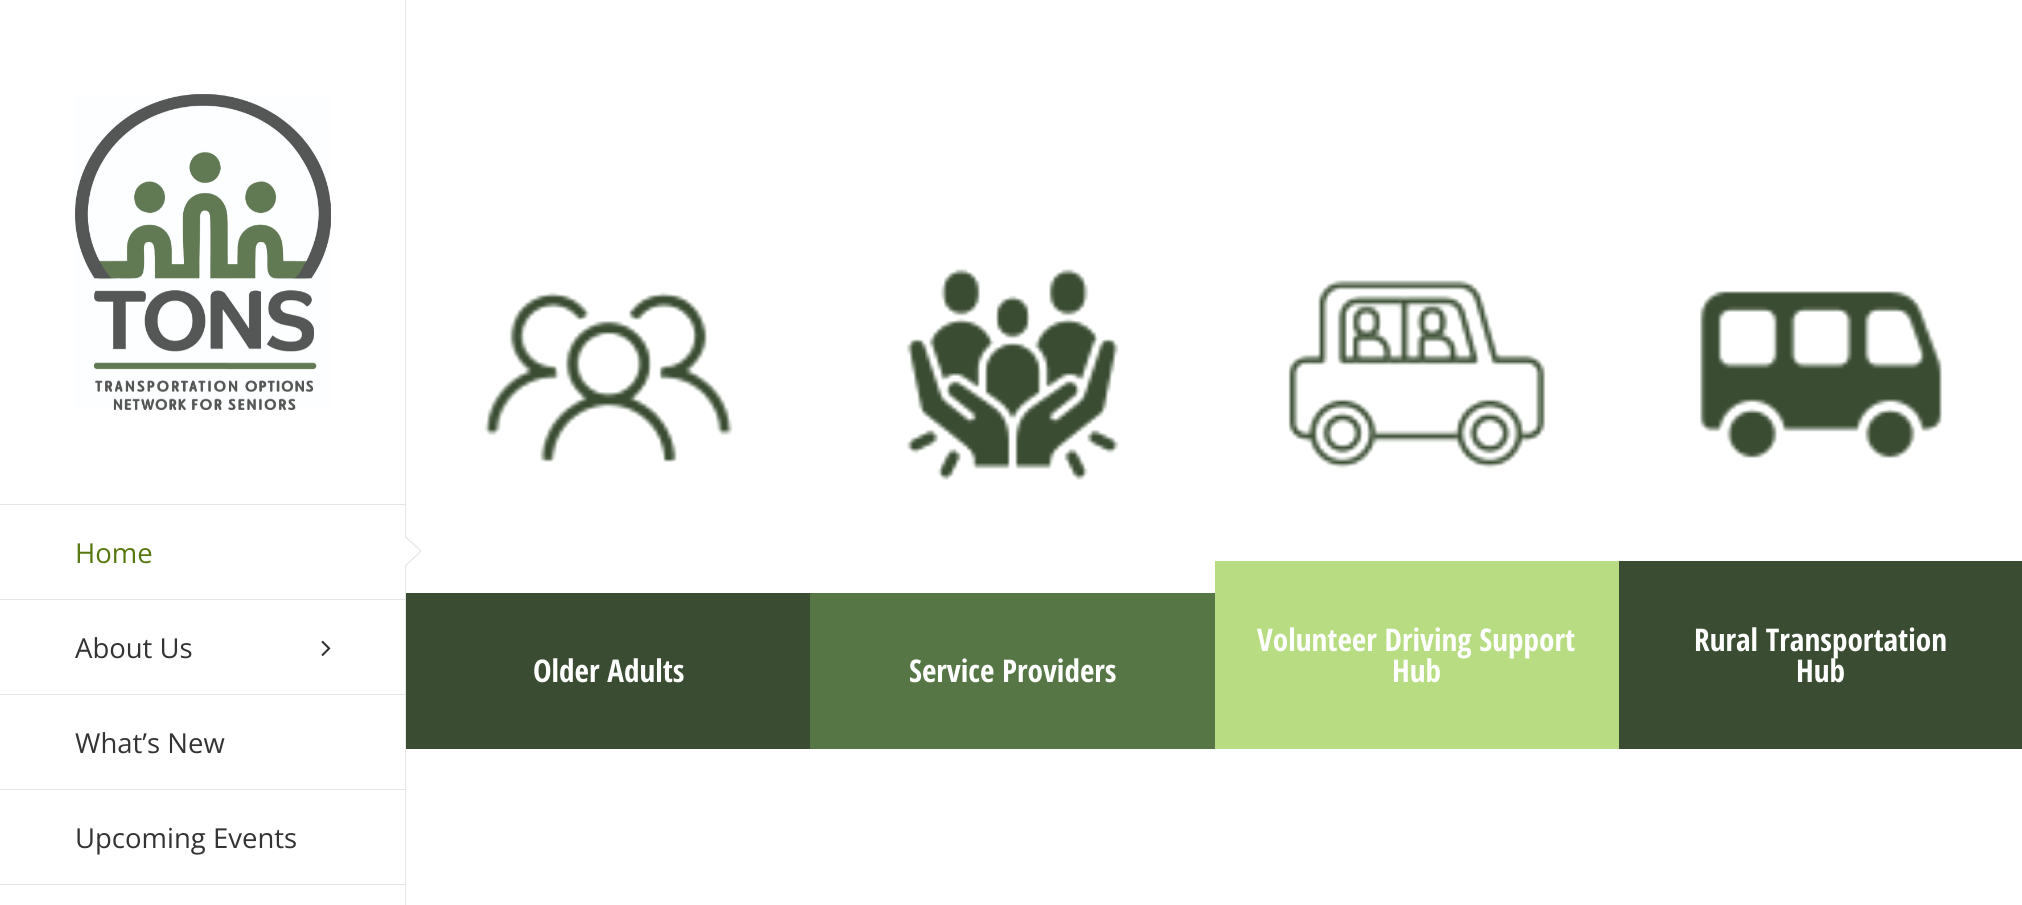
#include <cairo.h>
#include <math.h>
#include <stddef.h>


static void picture(cairo_t *cr, const char *path, double x, double y, double w, double h) {
    cairo_surface_t *image = cairo_image_surface_create_from_png(path);
    cairo_save(cr);
    cairo_set_source_surface(cr, image, x, y);
    cairo_rectangle(cr, x, y, w, h);
    cairo_fill(cr);
    cairo_restore(cr);
    cairo_surface_destroy(image);
}

int main(void) {
    cairo_surface_t *surface = cairo_image_surface_create(CAIRO_FORMAT_RGB24, 2022, 905);
    cairo_t *cr = cairo_create(surface);
    cairo_font_options_t *options = cairo_font_options_create();
    cairo_font_options_set_hint_metrics(options, CAIRO_HINT_METRICS_OFF);
    cairo_font_options_set_hint_style(options, CAIRO_HINT_STYLE_NONE);
    cairo_set_font_options(cr, options);
    cairo_set_miter_limit(cr, 4);
    cairo_set_source_rgb(cr, 1, 1, 1);
    cairo_paint(cr);
    picture(cr, "img1.png", 75, 94, 256, 316);
    cairo_set_source_rgb(cr, 0.898, 0.898, 0.898);
    cairo_rectangle(cr, 405, 0, 1, 905);
    cairo_fill(cr);
    cairo_rectangle(cr, 0, 504, 406, 1);
    cairo_fill(cr);
    cairo_rectangle(cr, 0, 599, 406, 1);
    cairo_fill(cr);
    cairo_select_font_face(cr, "Open Sans", CAIRO_FONT_SLANT_NORMAL, CAIRO_FONT_WEIGHT_NORMAL);
    cairo_set_font_size(cr, 27.5);
    cairo_set_source_rgb(cr, 0.341, 0.471, 0.063);
    cairo_move_to(cr, 75, 563);
    cairo_show_text(cr, "Home");
    cairo_save(cr);
    cairo_rectangle(cr, 405, 536, 16, 32);
    cairo_clip(cr);
    cairo_set_source_rgb(cr, 1, 1, 1);
    cairo_new_path(cr);
    cairo_move_to(cr, 404, 535.5);
    cairo_line_to(cr, 421, 551);
    cairo_line_to(cr, 404, 567);
    cairo_close_path(cr);
    cairo_fill_preserve(cr);
    cairo_set_source_rgb(cr, 0.898, 0.898, 0.898);
    cairo_set_line_width(cr, 1.2);
    cairo_stroke(cr);
    cairo_restore(cr);
    cairo_set_source_rgb(cr, 0.898, 0.898, 0.898);
    cairo_rectangle(cr, 0, 694, 406, 1);
    cairo_fill(cr);
    cairo_set_source_rgb(cr, 0.2, 0.2, 0.2);
    cairo_move_to(cr, 75, 658);
    cairo_show_text(cr, "About Us");
    picture(cr, "img2.png", 321, 640, 10, 16);
    cairo_set_source_rgb(cr, 0.898, 0.898, 0.898);
    cairo_rectangle(cr, 0, 789, 406, 1);
    cairo_fill(cr);
    cairo_set_source_rgb(cr, 0.2, 0.2, 0.2);
    cairo_move_to(cr, 75, 753);
    cairo_show_text(cr, "What’s New");
    cairo_set_source_rgb(cr, 0.898, 0.898, 0.898);
    cairo_rectangle(cr, 0, 884, 406, 1);
    cairo_fill(cr);
    cairo_set_source_rgb(cr, 0.2, 0.2, 0.2);
    cairo_move_to(cr, 75, 848);
    cairo_show_text(cr, "Upcoming Events");
    picture(cr, "img3.png", 484, 292, 249, 170);
    cairo_set_source_rgb(cr, 0.227, 0.298, 0.196);
    cairo_rectangle(cr, 406, 593, 404, 156);
    cairo_fill(cr);
    cairo_select_font_face(cr, "Open Sans Condensed", CAIRO_FONT_SLANT_NORMAL, CAIRO_FONT_WEIGHT_BOLD);
    cairo_set_font_size(cr, 31.25);
    cairo_set_source_rgb(cr, 1, 1, 1);
    cairo_move_to(cr, 533, 682);
    cairo_show_text(cr, "Older Adults");
    picture(cr, "img4.png", 810, 0, 405, 593);
    cairo_set_source_rgb(cr, 0.341, 0.463, 0.275);
    cairo_rectangle(cr, 810, 593, 405, 156);
    cairo_fill(cr);
    cairo_set_source_rgb(cr, 1, 1, 1);
    cairo_move_to(cr, 909, 682);
    cairo_show_text(cr, "Service Providers");
    picture(cr, "img5.png", 1215, 0, 404, 561);
    cairo_set_source_rgb(cr, 0.718, 0.863, 0.51);
    cairo_rectangle(cr, 1215, 561, 404, 188);
    cairo_fill(cr);
    cairo_set_source_rgb(cr, 1, 1, 1);
    cairo_move_to(cr, 1257, 651);
    cairo_show_text(cr, "Volunteer Driving Support");
    cairo_move_to(cr, 1392, 682);
    cairo_show_text(cr, "Hub");
    picture(cr, "img6.png", 1619, 0, 403, 561);
    cairo_set_source_rgb(cr, 0.227, 0.298, 0.196);
    cairo_rectangle(cr, 1619, 561, 403, 188);
    cairo_fill(cr);
    cairo_set_source_rgb(cr, 1, 1, 1);
    cairo_move_to(cr, 1694, 651);
    cairo_show_text(cr, "Rural Transportation");
    cairo_move_to(cr, 1796, 682);
    cairo_show_text(cr, "Hub");
    cairo_surface_write_to_png(surface, "page.png");
    cairo_font_options_destroy(options);
    cairo_destroy(cr);
    cairo_surface_destroy(surface);
    return 0;
}
